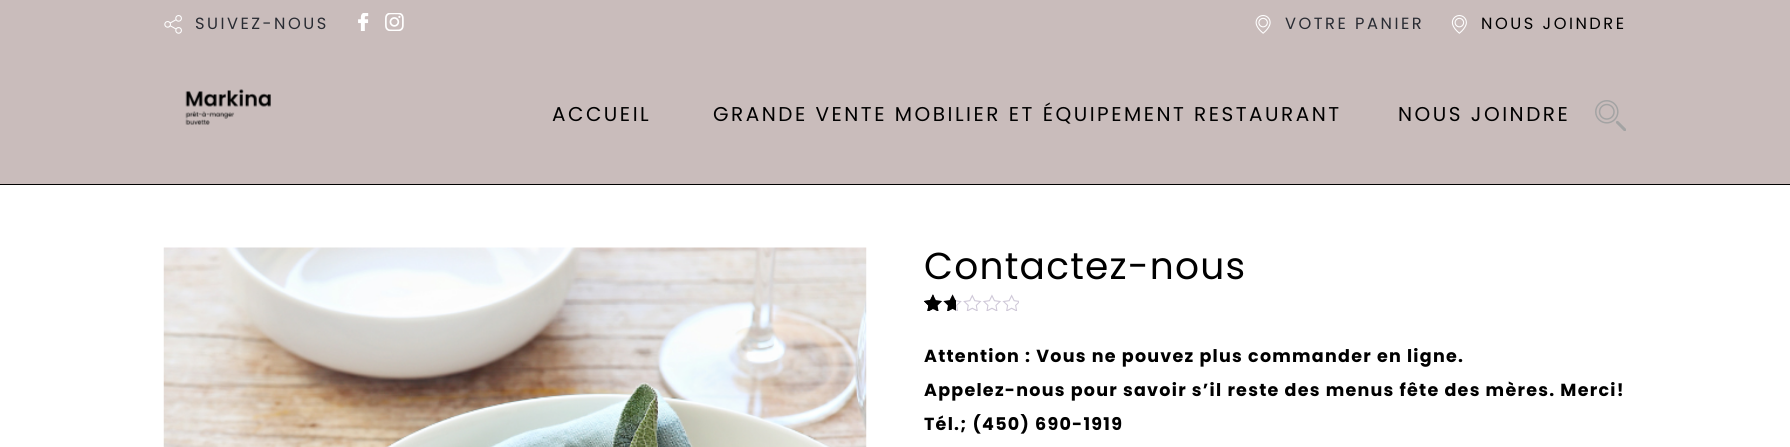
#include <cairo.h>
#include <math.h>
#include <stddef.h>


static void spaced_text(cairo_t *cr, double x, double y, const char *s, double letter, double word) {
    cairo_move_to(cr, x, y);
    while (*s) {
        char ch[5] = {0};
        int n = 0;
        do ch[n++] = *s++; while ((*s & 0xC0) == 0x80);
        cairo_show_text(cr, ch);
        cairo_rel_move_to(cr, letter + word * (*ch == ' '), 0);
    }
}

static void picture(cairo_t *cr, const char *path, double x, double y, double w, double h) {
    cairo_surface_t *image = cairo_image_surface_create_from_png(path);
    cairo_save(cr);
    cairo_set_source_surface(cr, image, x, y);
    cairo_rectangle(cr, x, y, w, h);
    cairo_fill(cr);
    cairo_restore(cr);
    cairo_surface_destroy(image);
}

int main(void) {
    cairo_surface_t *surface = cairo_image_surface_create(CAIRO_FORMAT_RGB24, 1790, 447);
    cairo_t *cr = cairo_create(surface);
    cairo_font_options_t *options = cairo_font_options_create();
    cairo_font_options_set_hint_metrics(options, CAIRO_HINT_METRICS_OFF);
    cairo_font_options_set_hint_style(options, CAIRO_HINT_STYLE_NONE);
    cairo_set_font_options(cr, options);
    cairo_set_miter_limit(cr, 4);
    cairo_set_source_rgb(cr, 1, 1, 1);
    cairo_paint(cr);
    cairo_set_source_rgb(cr, 0.788, 0.737, 0.733);
    cairo_rectangle(cr, 0, 0, 1790, 184);
    cairo_fill(cr);
    picture(cr, "img1.png", 164, 15, 18, 19);
    cairo_select_font_face(cr, "Poppins", CAIRO_FONT_SLANT_NORMAL, CAIRO_FONT_WEIGHT_NORMAL);
    cairo_set_font_size(cr, 16.25);
    cairo_set_source_rgb(cr, 0.161, 0.173, 0.2);
    spaced_text(cr, 195, 29, "SUIVEZ-NOUS", 2.5, 0);
    picture(cr, "img2.png", 358, 13, 11, 18);
    picture(cr, "img3.png", 385, 13, 19, 18);
    picture(cr, "img4.png", 1255, 15, 16, 19);
    spaced_text(cr, 1285, 29, "VOTRE PANIER", 2.5, 0);
    picture(cr, "img5.png", 1451, 15, 16, 19);
    cairo_set_source_rgb(cr, 0, 0, 0);
    spaced_text(cr, 1481, 29, "NOUS JOINDRE", 2.5, 0);
    cairo_rectangle(cr, 0, 184, 1790, 1);
    cairo_fill(cr);
    picture(cr, "img6.png", 185, 89, 86, 36);
    cairo_set_font_size(cr, 20);
    spaced_text(cr, 552, 121, "ACCUEIL", 2.5, 0);
    spaced_text(cr, 713, 121, "GRANDE VENTE MOBILIER ET ÉQUIPEMENT RESTAURANT", 2.5, 0);
    spaced_text(cr, 1398, 121, "NOUS JOINDRE", 2.5, 0);
    picture(cr, "img7.png", 1595, 100, 31, 31);
    picture(cr, "img8.png", 163, 247, 704, 200);
    cairo_set_font_size(cr, 37.5);
    spaced_text(cr, 924, 279, "Contactez-nous", 1.25, 0);
    picture(cr, "img9.png", 924, 294, 95, 17);
    picture(cr, "img10.png", 924, 294, 32, 17);
    picture(cr, "img11.png", 924, 294, 10, 17);
    cairo_select_font_face(cr, "Poppins", CAIRO_FONT_SLANT_NORMAL, CAIRO_FONT_WEIGHT_BOLD);
    cairo_set_font_size(cr, 17.5);
    spaced_text(cr, 924, 362, "Attention : Vous ne pouvez plus commander en ligne.", 1.25, 0);
    spaced_text(cr, 924, 396, "Appelez-nous pour savoir s’il reste des menus fête des mères. Merci!", 1.25, 0);
    spaced_text(cr, 924, 430, "Tél.; (450) 690-1919", 1.25, 0);
    cairo_surface_write_to_png(surface, "page.png");
    cairo_font_options_destroy(options);
    cairo_destroy(cr);
    cairo_surface_destroy(surface);
    return 0;
}
